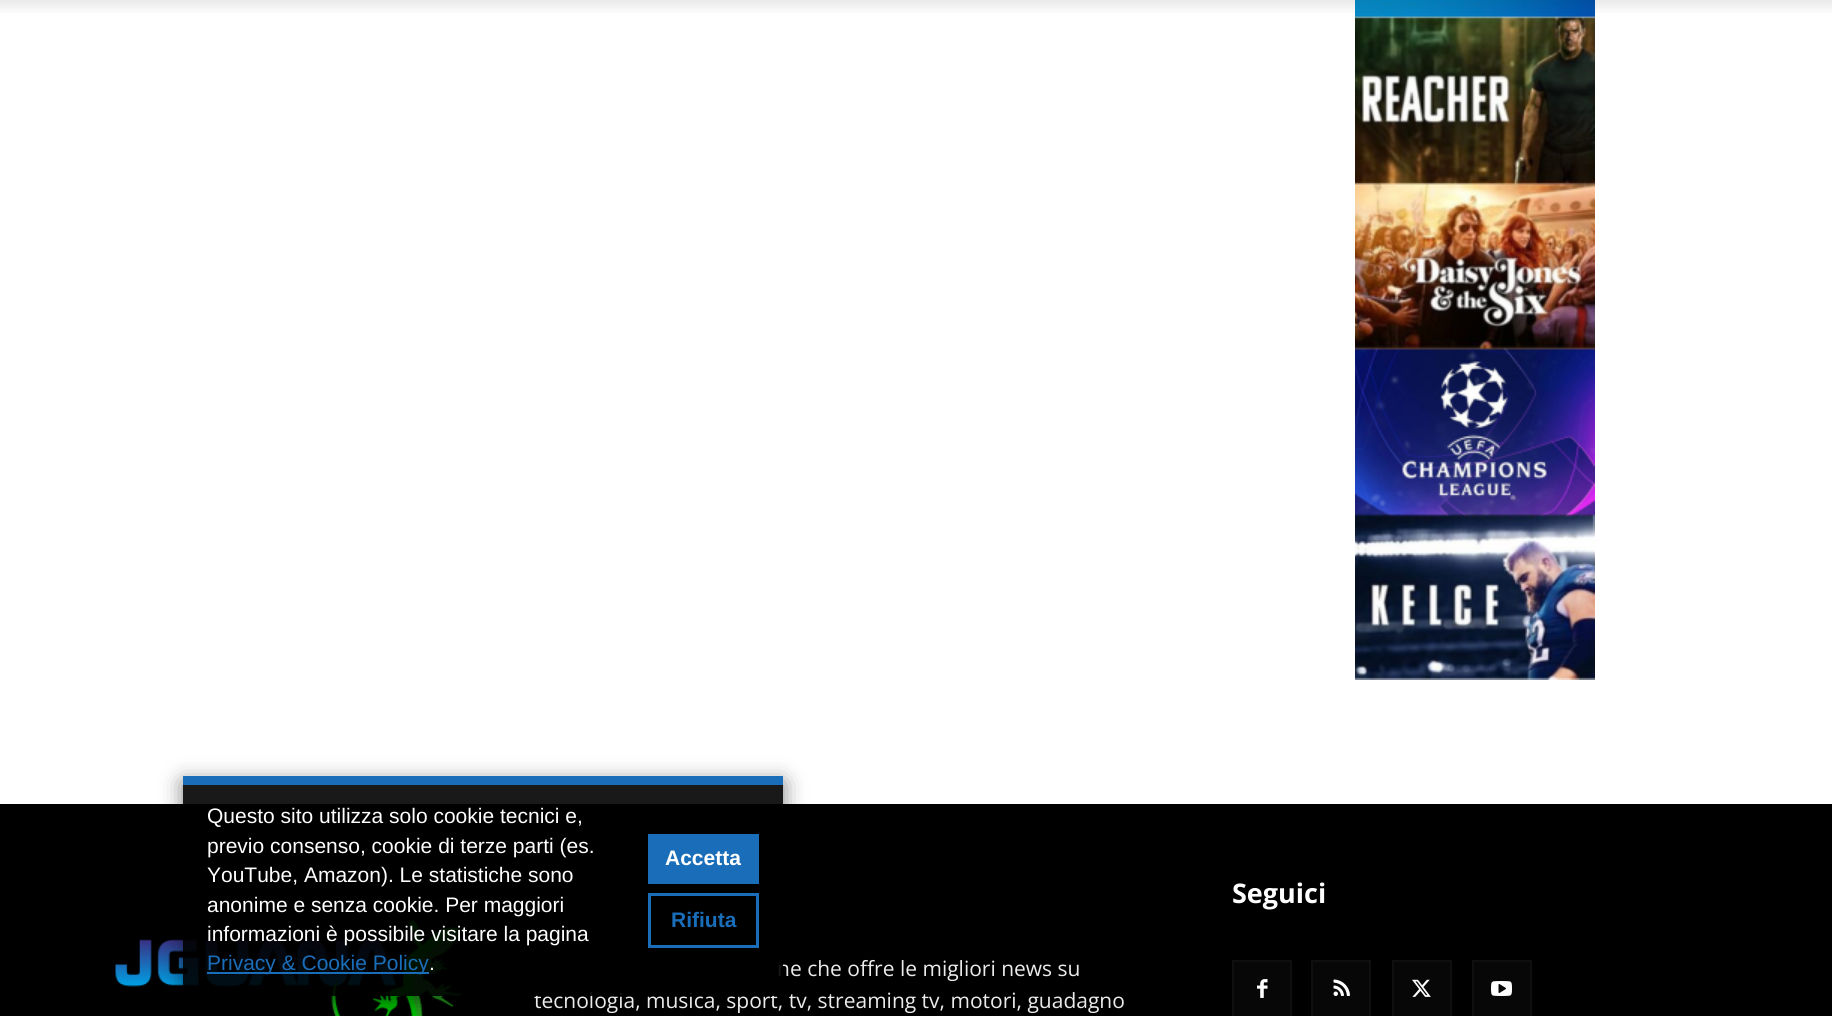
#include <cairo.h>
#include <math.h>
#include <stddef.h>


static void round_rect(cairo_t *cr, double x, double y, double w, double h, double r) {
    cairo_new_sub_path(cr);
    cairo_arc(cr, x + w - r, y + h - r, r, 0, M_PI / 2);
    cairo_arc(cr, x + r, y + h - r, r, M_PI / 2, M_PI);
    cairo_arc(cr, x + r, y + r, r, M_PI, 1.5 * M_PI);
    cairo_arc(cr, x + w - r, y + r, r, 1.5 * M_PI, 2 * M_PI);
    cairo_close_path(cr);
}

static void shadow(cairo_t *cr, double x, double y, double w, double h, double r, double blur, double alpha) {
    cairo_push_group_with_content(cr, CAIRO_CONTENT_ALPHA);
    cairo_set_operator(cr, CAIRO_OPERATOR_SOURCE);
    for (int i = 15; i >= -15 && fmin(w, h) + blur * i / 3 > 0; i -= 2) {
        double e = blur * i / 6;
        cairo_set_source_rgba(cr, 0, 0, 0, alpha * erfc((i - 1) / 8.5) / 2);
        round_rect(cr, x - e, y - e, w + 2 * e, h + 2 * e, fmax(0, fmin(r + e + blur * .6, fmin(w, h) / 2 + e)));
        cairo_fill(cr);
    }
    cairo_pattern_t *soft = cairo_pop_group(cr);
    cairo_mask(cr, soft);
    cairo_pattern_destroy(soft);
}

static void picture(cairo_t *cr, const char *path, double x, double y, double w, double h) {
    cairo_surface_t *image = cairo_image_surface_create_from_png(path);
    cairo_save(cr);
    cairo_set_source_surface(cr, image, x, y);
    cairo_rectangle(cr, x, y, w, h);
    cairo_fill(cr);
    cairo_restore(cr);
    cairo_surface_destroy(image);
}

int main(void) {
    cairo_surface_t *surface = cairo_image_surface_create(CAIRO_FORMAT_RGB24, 1832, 1016);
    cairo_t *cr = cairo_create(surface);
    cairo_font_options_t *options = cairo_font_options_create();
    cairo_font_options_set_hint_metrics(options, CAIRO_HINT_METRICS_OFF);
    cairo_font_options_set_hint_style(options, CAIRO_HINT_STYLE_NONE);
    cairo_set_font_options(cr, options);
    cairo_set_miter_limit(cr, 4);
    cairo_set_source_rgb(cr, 0, 0, 0);
    cairo_paint(cr);
    cairo_set_source_rgb(cr, 1, 1, 1);
    cairo_rectangle(cr, 0, 0, 1832, 804);
    cairo_fill(cr);
    picture(cr, "img7.png", 115, 919, 347, 97);
    cairo_save(cr);
    cairo_set_fill_rule(cr, CAIRO_FILL_RULE_EVEN_ODD);
    cairo_new_path(cr);
    cairo_move_to(cr, 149, 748);
    cairo_line_to(cr, 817, 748);
    cairo_line_to(cr, 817, 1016);
    cairo_line_to(cr, 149, 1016);
    cairo_close_path(cr);
    cairo_move_to(cr, 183, 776);
    cairo_line_to(cr, 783, 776);
    cairo_line_to(cr, 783, 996);
    cairo_line_to(cr, 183, 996);
    cairo_close_path(cr);
    cairo_clip(cr);
    cairo_set_source_rgb(cr, 0, 0, 0);
    shadow(cr, 183, 782, 600, 220, 0, 11, 0.5);
    cairo_restore(cr);
    cairo_select_font_face(cr, "Open Sans", CAIRO_FONT_SLANT_NORMAL, CAIRO_FONT_WEIGHT_NORMAL);
    cairo_set_font_size(cr, 21);
    cairo_set_source_rgb(cr, 0.918, 0.918, 0.918);
    cairo_move_to(cr, 777, 976);
    cairo_show_text(cr, "ne che offre le migliori news su");
    cairo_move_to(cr, 534, 1008);
    cairo_show_text(cr, "tecnologia, musica, sport, tv, streaming tv, motori, guadagno");
    cairo_set_source_rgba(cr, 0, 0, 0, 0.9);
    cairo_rectangle(cr, 183, 785, 600, 211);
    cairo_fill(cr);
    cairo_set_source_rgb(cr, 0.102, 0.431, 0.725);
    cairo_rectangle(cr, 183, 776, 600, 9);
    cairo_fill(cr);
    cairo_select_font_face(cr, "Liberation Sans", CAIRO_FONT_SLANT_NORMAL, CAIRO_FONT_WEIGHT_NORMAL);
    cairo_set_source_rgb(cr, 1, 1, 1);
    cairo_move_to(cr, 207, 823);
    cairo_show_text(cr, "Questo sito utilizza solo cookie tecnici e,");
    cairo_move_to(cr, 207, 853);
    cairo_show_text(cr, "previo consenso, cookie di terze parti (es.");
    cairo_move_to(cr, 207, 882);
    cairo_show_text(cr, "YouTube, Amazon). Le statistiche sono");
    cairo_move_to(cr, 207, 912);
    cairo_show_text(cr, "anonime e senza cookie. Per maggiori");
    cairo_move_to(cr, 207, 941);
    cairo_show_text(cr, "informazioni è possibile visitare la pagina");
    cairo_set_source_rgb(cr, 0.102, 0.431, 0.725);
    cairo_rectangle(cr, 207, 972, 222, 2);
    cairo_fill(cr);
    cairo_move_to(cr, 207, 970);
    cairo_show_text(cr, "Privacy & Cookie Policy");
    cairo_set_source_rgb(cr, 1, 1, 1);
    cairo_move_to(cr, 429, 970);
    cairo_show_text(cr, ".");
    cairo_set_source_rgb(cr, 0.102, 0.431, 0.725);
    cairo_rectangle(cr, 648, 834, 111, 50);
    cairo_fill(cr);
    cairo_select_font_face(cr, "Liberation Sans", CAIRO_FONT_SLANT_NORMAL, CAIRO_FONT_WEIGHT_BOLD);
    cairo_set_source_rgb(cr, 1, 1, 1);
    cairo_move_to(cr, 665, 865);
    cairo_show_text(cr, "Accetta");
    cairo_rectangle(cr, 649.5, 894.5, 108, 52);
    cairo_set_source_rgb(cr, 0.102, 0.431, 0.725);
    cairo_set_line_width(cr, 3);
    cairo_stroke(cr);
    cairo_move_to(cr, 671, 927);
    cairo_show_text(cr, "Rifiuta");
    picture(cr, "img1.png", 1355, 0, 240, 680);
    picture(cr, "img2.png", 0, 0, 1832, 13);
    cairo_select_font_face(cr, "Open Sans", CAIRO_FONT_SLANT_NORMAL, CAIRO_FONT_WEIGHT_BOLD);
    cairo_set_font_size(cr, 27);
    cairo_set_source_rgb(cr, 1, 1, 1);
    cairo_move_to(cr, 1232, 903);
    cairo_show_text(cr, "Seguici");
    cairo_set_source_rgb(cr, 0.031, 0.031, 0.031);
    cairo_rectangle(cr, 1234, 962, 56, 54);
    cairo_fill(cr);
    picture(cr, "img3.png", 1257, 979, 11, 19);
    cairo_rectangle(cr, 1233, 961, 58, 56);
    cairo_set_source_rgb(cr, 0.059, 0.059, 0.059);
    cairo_set_line_width(cr, 2);
    cairo_stroke(cr);
    cairo_set_source_rgb(cr, 0.031, 0.031, 0.031);
    cairo_rectangle(cr, 1313, 962, 56, 54);
    cairo_fill(cr);
    picture(cr, "img4.png", 1333, 979, 17, 17);
    cairo_rectangle(cr, 1312, 961, 58, 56);
    cairo_set_source_rgb(cr, 0.059, 0.059, 0.059);
    cairo_stroke(cr);
    cairo_set_source_rgb(cr, 0.031, 0.031, 0.031);
    cairo_rectangle(cr, 1394, 962, 56, 54);
    cairo_fill(cr);
    picture(cr, "img5.png", 1412, 979, 19, 18);
    cairo_rectangle(cr, 1393, 961, 58, 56);
    cairo_set_source_rgb(cr, 0.059, 0.059, 0.059);
    cairo_stroke(cr);
    cairo_set_source_rgb(cr, 0.031, 0.031, 0.031);
    cairo_rectangle(cr, 1474, 962, 56, 54);
    cairo_fill(cr);
    picture(cr, "img6.png", 1491, 981, 21, 15);
    cairo_rectangle(cr, 1473, 961, 58, 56);
    cairo_set_source_rgb(cr, 0.059, 0.059, 0.059);
    cairo_stroke(cr);
    cairo_surface_write_to_png(surface, "page.png");
    cairo_font_options_destroy(options);
    cairo_destroy(cr);
    cairo_surface_destroy(surface);
    return 0;
}
